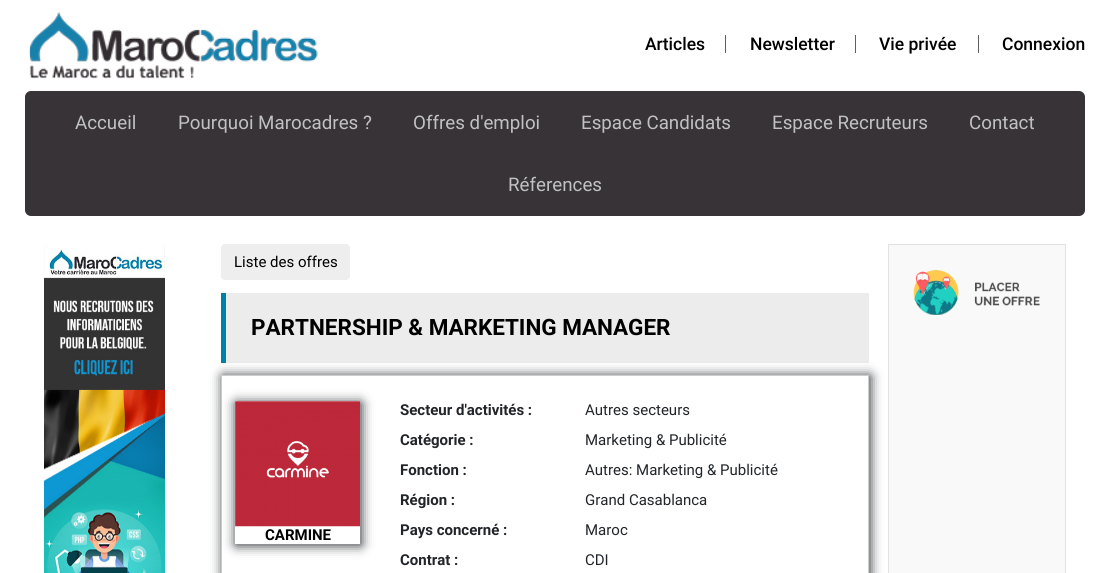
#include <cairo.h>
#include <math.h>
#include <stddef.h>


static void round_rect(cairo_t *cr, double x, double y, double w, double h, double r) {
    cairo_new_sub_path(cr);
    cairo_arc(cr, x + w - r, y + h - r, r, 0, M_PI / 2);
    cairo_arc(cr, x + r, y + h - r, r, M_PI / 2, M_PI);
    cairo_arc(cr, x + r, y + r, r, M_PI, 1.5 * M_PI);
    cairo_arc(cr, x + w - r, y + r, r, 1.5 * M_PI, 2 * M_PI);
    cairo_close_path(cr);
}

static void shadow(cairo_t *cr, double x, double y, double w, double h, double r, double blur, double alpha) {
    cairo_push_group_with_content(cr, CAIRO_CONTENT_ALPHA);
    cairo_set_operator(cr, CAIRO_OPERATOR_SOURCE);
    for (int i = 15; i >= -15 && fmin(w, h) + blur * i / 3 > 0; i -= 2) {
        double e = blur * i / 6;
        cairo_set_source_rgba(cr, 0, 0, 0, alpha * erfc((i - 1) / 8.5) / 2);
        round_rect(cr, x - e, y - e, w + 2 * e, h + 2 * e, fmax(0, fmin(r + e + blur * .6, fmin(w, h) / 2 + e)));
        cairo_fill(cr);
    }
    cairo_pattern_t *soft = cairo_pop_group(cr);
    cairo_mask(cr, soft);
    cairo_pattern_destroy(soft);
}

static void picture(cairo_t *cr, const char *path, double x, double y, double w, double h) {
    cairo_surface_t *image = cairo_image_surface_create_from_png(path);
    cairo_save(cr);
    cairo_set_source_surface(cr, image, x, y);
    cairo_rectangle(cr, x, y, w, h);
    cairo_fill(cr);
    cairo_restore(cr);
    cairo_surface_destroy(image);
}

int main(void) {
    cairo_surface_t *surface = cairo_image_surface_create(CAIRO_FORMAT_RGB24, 1109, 573);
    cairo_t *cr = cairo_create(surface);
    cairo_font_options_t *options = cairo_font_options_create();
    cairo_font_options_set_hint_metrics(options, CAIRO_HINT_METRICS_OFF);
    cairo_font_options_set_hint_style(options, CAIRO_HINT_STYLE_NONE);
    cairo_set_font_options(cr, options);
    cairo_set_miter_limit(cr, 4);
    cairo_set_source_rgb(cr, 1, 1, 1);
    cairo_paint(cr);
    picture(cr, "img1.png", 28, 12, 290, 67);
    cairo_set_source_rgb(cr, 0.373, 0.373, 0.373);
    cairo_rectangle(cr, 725, 35, 1, 18);
    cairo_fill(cr);
    cairo_select_font_face(cr, "Roboto Medium", CAIRO_FONT_SLANT_NORMAL, CAIRO_FONT_WEIGHT_NORMAL);
    cairo_set_font_size(cr, 17.5);
    cairo_set_source_rgb(cr, 0, 0, 0);
    cairo_move_to(cr, 645, 50);
    cairo_show_text(cr, "Articles");
    cairo_set_source_rgb(cr, 0.373, 0.373, 0.373);
    cairo_rectangle(cr, 855, 35, 1, 18);
    cairo_fill(cr);
    cairo_set_source_rgb(cr, 0, 0, 0);
    cairo_move_to(cr, 750, 50);
    cairo_show_text(cr, "Newsletter");
    cairo_set_source_rgb(cr, 0.373, 0.373, 0.373);
    cairo_rectangle(cr, 978, 35, 1, 18);
    cairo_fill(cr);
    cairo_set_source_rgb(cr, 0, 0, 0);
    cairo_move_to(cr, 879, 50);
    cairo_show_text(cr, "Vie privée");
    cairo_move_to(cr, 1002, 50);
    cairo_show_text(cr, "Connexion");
    cairo_set_source_rgb(cr, 0.216, 0.2, 0.216);
    round_rect(cr, 25, 91, 1060, 125, 6);
    cairo_fill(cr);
    cairo_select_font_face(cr, "Roboto", CAIRO_FONT_SLANT_NORMAL, CAIRO_FONT_WEIGHT_NORMAL);
    cairo_set_font_size(cr, 18.75);
    cairo_set_source_rgb(cr, 0.757, 0.757, 0.757);
    cairo_move_to(cr, 75, 129);
    cairo_show_text(cr, "Accueil");
    cairo_move_to(cr, 178, 129);
    cairo_show_text(cr, "Pourquoi Marocadres ?");
    cairo_move_to(cr, 413, 129);
    cairo_show_text(cr, "Offres d'emploi");
    cairo_move_to(cr, 581, 129);
    cairo_show_text(cr, "Espace Candidats");
    cairo_move_to(cr, 772, 129);
    cairo_show_text(cr, "Espace Recruteurs");
    cairo_move_to(cr, 969, 129);
    cairo_show_text(cr, "Contact");
    cairo_move_to(cr, 508, 191);
    cairo_show_text(cr, "Réferences");
    picture(cr, "img2.png", 44, 245, 121, 328);
    cairo_set_source_rgb(cr, 0.933, 0.933, 0.933);
    round_rect(cr, 221, 244, 129, 36, 4);
    cairo_fill(cr);
    cairo_set_font_size(cr, 15);
    cairo_set_source_rgb(cr, 0, 0, 0);
    cairo_move_to(cr, 234, 267);
    cairo_show_text(cr, "Liste des offres");
    cairo_set_source_rgb(cr, 0.925, 0.925, 0.925);
    cairo_rectangle(cr, 226, 293, 643, 70);
    cairo_fill(cr);
    cairo_set_source_rgb(cr, 0, 0.506, 0.663);
    cairo_rectangle(cr, 221, 293, 5, 70);
    cairo_fill(cr);
    cairo_select_font_face(cr, "Roboto", CAIRO_FONT_SLANT_NORMAL, CAIRO_FONT_WEIGHT_BOLD);
    cairo_set_font_size(cr, 22.5);
    cairo_set_source_rgb(cr, 0, 0, 0);
    cairo_move_to(cr, 251, 335);
    cairo_show_text(cr, "PARTNERSHIP & MARKETING MANAGER");
    cairo_save(cr);
    cairo_set_fill_rule(cr, CAIRO_FILL_RULE_EVEN_ODD);
    cairo_new_path(cr);
    cairo_move_to(cr, 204, 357);
    cairo_line_to(cr, 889, 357);
    cairo_line_to(cr, 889, 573);
    cairo_line_to(cr, 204, 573);
    cairo_close_path(cr);
    cairo_move_to(cr, 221, 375);
    cairo_line_to(cr, 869, 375);
    cairo_line_to(cr, 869, 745);
    cairo_line_to(cr, 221, 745);
    cairo_close_path(cr);
    cairo_clip(cr);
    cairo_set_source_rgb(cr, 0.129, 0.145, 0.161);
    shadow(cr, 223, 376, 647, 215, 0, 6, 1);
    cairo_restore(cr);
    cairo_rectangle(cr, 221.5, 375.5, 647, 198);
    cairo_set_source_rgb(cr, 0.8, 0.8, 0.8);
    cairo_set_line_width(cr, 1);
    cairo_stroke(cr);
    cairo_save(cr);
    cairo_set_fill_rule(cr, CAIRO_FILL_RULE_EVEN_ODD);
    cairo_new_path(cr);
    cairo_move_to(cr, 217, 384);
    cairo_line_to(cr, 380, 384);
    cairo_line_to(cr, 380, 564);
    cairo_line_to(cr, 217, 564);
    cairo_close_path(cr);
    cairo_move_to(cr, 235, 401);
    cairo_line_to(cr, 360, 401);
    cairo_line_to(cr, 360, 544);
    cairo_line_to(cr, 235, 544);
    cairo_close_path(cr);
    cairo_clip(cr);
    cairo_set_source_rgb(cr, 0.129, 0.145, 0.161);
    shadow(cr, 236, 403, 125, 142, 0, 6, 1);
    cairo_restore(cr);
    picture(cr, "img3.png", 235, 401, 125, 126);
    cairo_set_font_size(cr, 15);
    cairo_set_source_rgb(cr, 0, 0, 0);
    cairo_move_to(cr, 265, 540);
    cairo_show_text(cr, "CARMINE");
    cairo_set_source_rgb(cr, 0.129, 0.145, 0.161);
    cairo_move_to(cr, 400, 415);
    cairo_show_text(cr, "Secteur d'activités :");
    cairo_select_font_face(cr, "Roboto", CAIRO_FONT_SLANT_NORMAL, CAIRO_FONT_WEIGHT_NORMAL);
    cairo_move_to(cr, 585, 415);
    cairo_show_text(cr, "Autres secteurs");
    cairo_select_font_face(cr, "Roboto", CAIRO_FONT_SLANT_NORMAL, CAIRO_FONT_WEIGHT_BOLD);
    cairo_move_to(cr, 400, 445);
    cairo_show_text(cr, "Catégorie :");
    cairo_select_font_face(cr, "Roboto", CAIRO_FONT_SLANT_NORMAL, CAIRO_FONT_WEIGHT_NORMAL);
    cairo_move_to(cr, 585, 445);
    cairo_show_text(cr, "Marketing & Publicité");
    cairo_select_font_face(cr, "Roboto", CAIRO_FONT_SLANT_NORMAL, CAIRO_FONT_WEIGHT_BOLD);
    cairo_move_to(cr, 400, 475);
    cairo_show_text(cr, "Fonction :");
    cairo_select_font_face(cr, "Roboto", CAIRO_FONT_SLANT_NORMAL, CAIRO_FONT_WEIGHT_NORMAL);
    cairo_move_to(cr, 585, 475);
    cairo_show_text(cr, "Autres: Marketing & Publicité");
    cairo_select_font_face(cr, "Roboto", CAIRO_FONT_SLANT_NORMAL, CAIRO_FONT_WEIGHT_BOLD);
    cairo_move_to(cr, 400, 505);
    cairo_show_text(cr, "Région :");
    cairo_select_font_face(cr, "Roboto", CAIRO_FONT_SLANT_NORMAL, CAIRO_FONT_WEIGHT_NORMAL);
    cairo_move_to(cr, 585, 505);
    cairo_show_text(cr, "Grand Casablanca");
    cairo_select_font_face(cr, "Roboto", CAIRO_FONT_SLANT_NORMAL, CAIRO_FONT_WEIGHT_BOLD);
    cairo_move_to(cr, 400, 535);
    cairo_show_text(cr, "Pays concerné :");
    cairo_select_font_face(cr, "Roboto", CAIRO_FONT_SLANT_NORMAL, CAIRO_FONT_WEIGHT_NORMAL);
    cairo_move_to(cr, 585, 535);
    cairo_show_text(cr, "Maroc");
    cairo_select_font_face(cr, "Roboto", CAIRO_FONT_SLANT_NORMAL, CAIRO_FONT_WEIGHT_BOLD);
    cairo_move_to(cr, 400, 565);
    cairo_show_text(cr, "Contrat :");
    cairo_select_font_face(cr, "Roboto", CAIRO_FONT_SLANT_NORMAL, CAIRO_FONT_WEIGHT_NORMAL);
    cairo_move_to(cr, 585, 565);
    cairo_show_text(cr, "CDI");
    cairo_set_source_rgb(cr, 0.976, 0.976, 0.976);
    cairo_rectangle(cr, 888.5, 244.5, 177, 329);
    cairo_fill_preserve(cr);
    cairo_set_source_rgb(cr, 0.886, 0.886, 0.886);
    cairo_stroke(cr);
    picture(cr, "img4.png", 913, 270, 127, 45);
    cairo_surface_write_to_png(surface, "page.png");
    cairo_font_options_destroy(options);
    cairo_destroy(cr);
    cairo_surface_destroy(surface);
    return 0;
}
